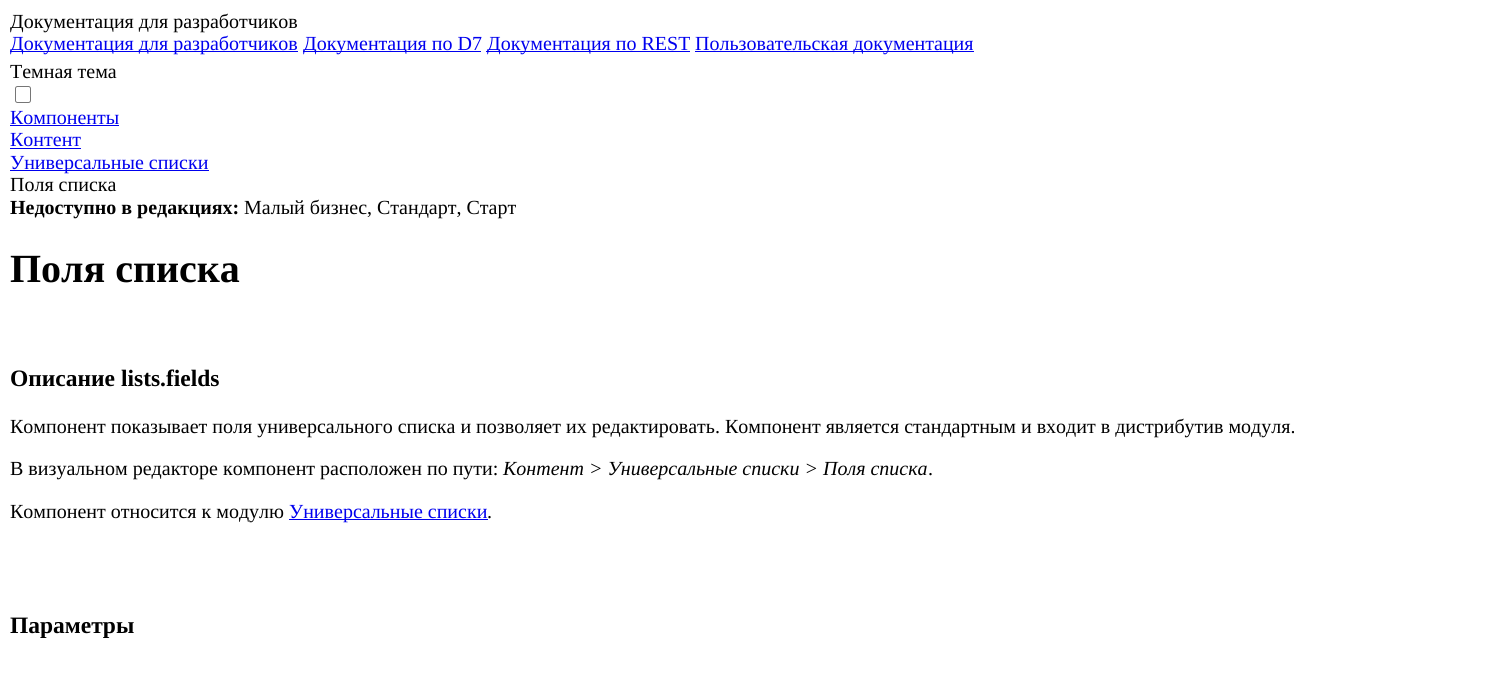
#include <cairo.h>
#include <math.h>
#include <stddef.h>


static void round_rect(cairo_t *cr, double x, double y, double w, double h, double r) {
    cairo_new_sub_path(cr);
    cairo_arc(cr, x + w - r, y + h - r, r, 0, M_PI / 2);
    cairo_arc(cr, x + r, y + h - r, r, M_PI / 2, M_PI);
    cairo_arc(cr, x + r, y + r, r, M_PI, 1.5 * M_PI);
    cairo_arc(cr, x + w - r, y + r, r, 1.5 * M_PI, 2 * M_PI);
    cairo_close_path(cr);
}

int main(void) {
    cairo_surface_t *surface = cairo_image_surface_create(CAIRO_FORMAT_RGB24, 1489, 674);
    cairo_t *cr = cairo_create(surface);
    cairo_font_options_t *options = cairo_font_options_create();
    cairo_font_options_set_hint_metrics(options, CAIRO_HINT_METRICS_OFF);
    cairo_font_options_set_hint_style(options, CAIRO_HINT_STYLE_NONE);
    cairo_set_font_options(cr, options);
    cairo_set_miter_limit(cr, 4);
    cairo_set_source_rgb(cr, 1, 1, 1);
    cairo_paint(cr);
    cairo_select_font_face(cr, "Liberation Serif", CAIRO_FONT_SLANT_NORMAL, CAIRO_FONT_WEIGHT_NORMAL);
    cairo_set_font_size(cr, 20);
    cairo_set_source_rgb(cr, 0, 0, 0);
    cairo_move_to(cr, 10, 28);
    cairo_show_text(cr, "Документация для разработчиков");
    cairo_set_source_rgb(cr, 0, 0, 0.933);
    cairo_rectangle(cr, 10, 51, 288, 1);
    cairo_fill(cr);
    cairo_move_to(cr, 10, 50);
    cairo_show_text(cr, "Документация для разработчиков");
    cairo_rectangle(cr, 303, 51, 178, 1);
    cairo_fill(cr);
    cairo_move_to(cr, 303, 50);
    cairo_show_text(cr, "Документация по D7");
    cairo_rectangle(cr, 486, 51, 204, 1);
    cairo_fill(cr);
    cairo_move_to(cr, 487, 50);
    cairo_show_text(cr, "Документация по REST");
    cairo_rectangle(cr, 695, 51, 279, 1);
    cairo_fill(cr);
    cairo_move_to(cr, 695, 50);
    cairo_show_text(cr, "Пользовательская документация");
    cairo_set_source_rgb(cr, 0, 0, 0);
    cairo_move_to(cr, 10, 78);
    cairo_show_text(cr, "Темная тема");
    round_rect(cr, 15.5, 86.5, 15, 16, 2);
    cairo_set_source_rgb(cr, 0.463, 0.463, 0.463);
    cairo_set_line_width(cr, 1);
    cairo_stroke(cr);
    cairo_set_source_rgb(cr, 0, 0, 0.933);
    cairo_move_to(cr, 10, 124);
    cairo_show_text(cr, "Компоненты");
    cairo_rectangle(cr, 10, 125, 109, 1);
    cairo_fill(cr);
    cairo_move_to(cr, 10, 146);
    cairo_show_text(cr, "Контент");
    cairo_rectangle(cr, 10, 148, 71, 1);
    cairo_fill(cr);
    cairo_rectangle(cr, 10, 170, 199, 1);
    cairo_fill(cr);
    cairo_move_to(cr, 10, 169);
    cairo_show_text(cr, "Универсальные списки");
    cairo_set_source_rgb(cr, 0, 0, 0);
    cairo_move_to(cr, 10, 191);
    cairo_show_text(cr, "Поля списка");
    cairo_select_font_face(cr, "Liberation Serif", CAIRO_FONT_SLANT_NORMAL, CAIRO_FONT_WEIGHT_BOLD);
    cairo_move_to(cr, 10, 214);
    cairo_show_text(cr, "Недоступно в редакциях:");
    cairo_select_font_face(cr, "Liberation Serif", CAIRO_FONT_SLANT_NORMAL, CAIRO_FONT_WEIGHT_NORMAL);
    cairo_move_to(cr, 244, 214);
    cairo_show_text(cr, "Малый бизнес, Стандарт, Старт");
    cairo_select_font_face(cr, "Liberation Serif", CAIRO_FONT_SLANT_NORMAL, CAIRO_FONT_WEIGHT_BOLD);
    cairo_set_font_size(cr, 40);
    cairo_move_to(cr, 10, 282);
    cairo_show_text(cr, "Поля списка");
    cairo_set_font_size(cr, 23.5);
    cairo_move_to(cr, 10, 386);
    cairo_show_text(cr, "Описание lists.fields");
    cairo_select_font_face(cr, "Liberation Serif", CAIRO_FONT_SLANT_NORMAL, CAIRO_FONT_WEIGHT_NORMAL);
    cairo_set_font_size(cr, 20);
    cairo_move_to(cr, 10, 433);
    cairo_show_text(cr, "Компонент показывает поля универсального списка и позволяет их редактировать. Компонент является стандартным и входит в дистрибутив модуля.");
    cairo_move_to(cr, 10, 475);
    cairo_show_text(cr, "В визуальном редакторе компонент расположен по пути:");
    cairo_select_font_face(cr, "Liberation Serif", CAIRO_FONT_SLANT_ITALIC, CAIRO_FONT_WEIGHT_NORMAL);
    cairo_move_to(cr, 503, 475);
    cairo_show_text(cr, "Контент > Универсальные списки > Поля списка");
    cairo_select_font_face(cr, "Liberation Serif", CAIRO_FONT_SLANT_NORMAL, CAIRO_FONT_WEIGHT_NORMAL);
    cairo_move_to(cr, 928, 475);
    cairo_show_text(cr, ".");
    cairo_move_to(cr, 10, 518);
    cairo_show_text(cr, "Компонент относится к модулю");
    cairo_set_source_rgb(cr, 0, 0, 0.933);
    cairo_rectangle(cr, 289, 519, 199, 1);
    cairo_fill(cr);
    cairo_move_to(cr, 289, 518);
    cairo_show_text(cr, "Универсальные списки");
    cairo_set_source_rgb(cr, 0, 0, 0);
    cairo_move_to(cr, 487, 518);
    cairo_show_text(cr, ".");
    cairo_select_font_face(cr, "Liberation Serif", CAIRO_FONT_SLANT_NORMAL, CAIRO_FONT_WEIGHT_BOLD);
    cairo_set_font_size(cr, 23.5);
    cairo_move_to(cr, 10, 633);
    cairo_show_text(cr, "Параметры");
    cairo_surface_write_to_png(surface, "page.png");
    cairo_font_options_destroy(options);
    cairo_destroy(cr);
    cairo_surface_destroy(surface);
    return 0;
}
